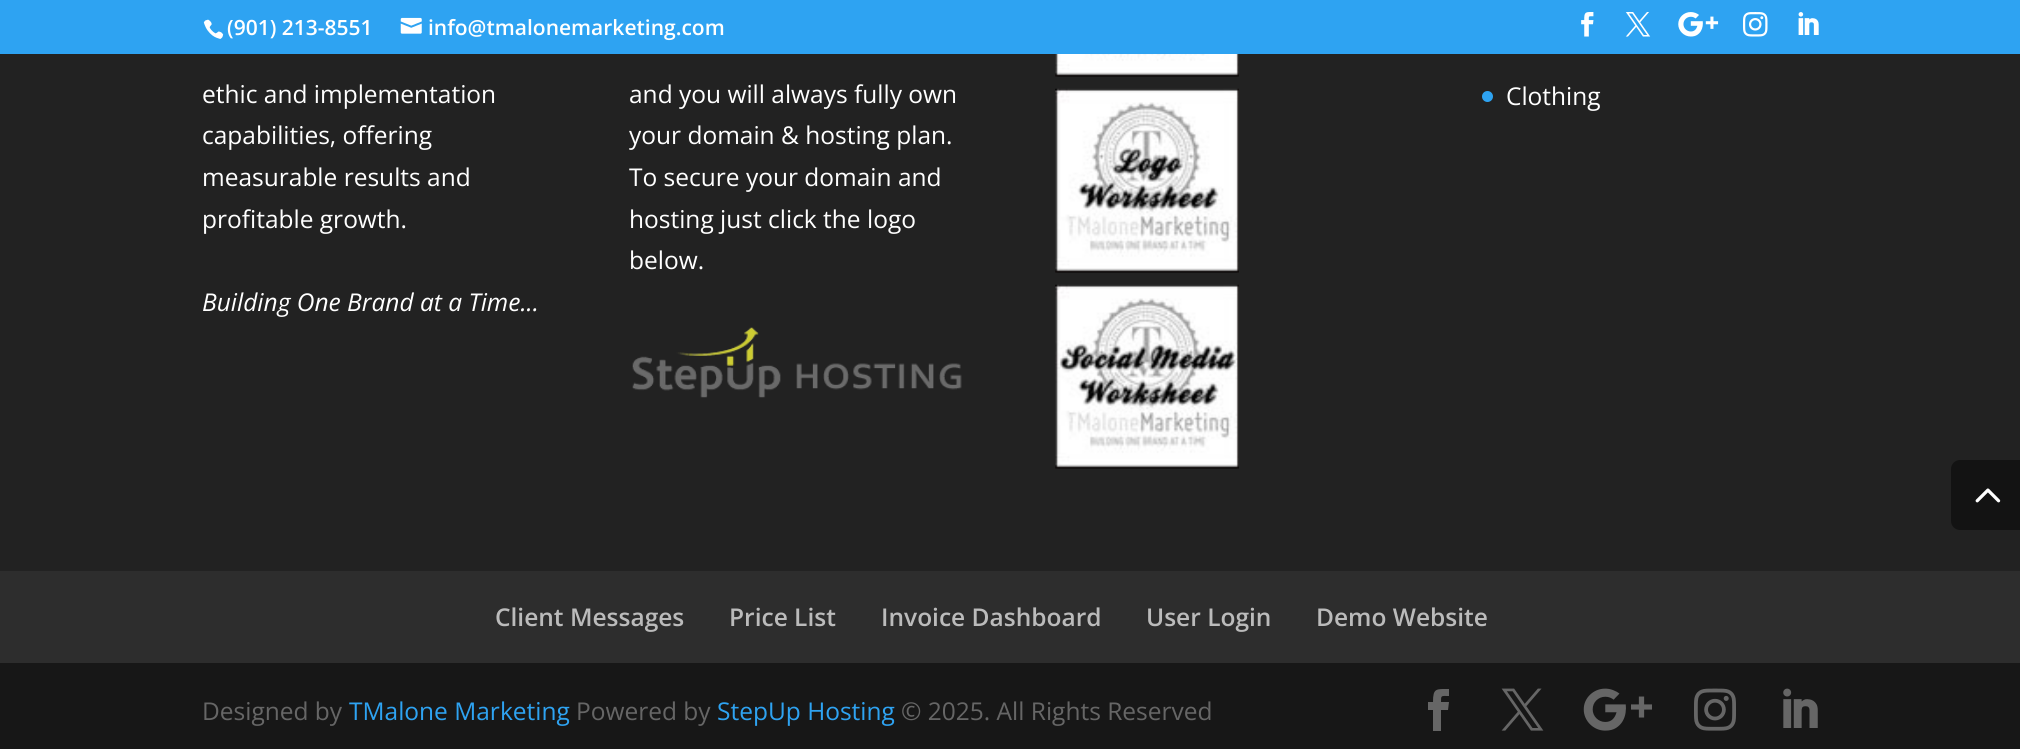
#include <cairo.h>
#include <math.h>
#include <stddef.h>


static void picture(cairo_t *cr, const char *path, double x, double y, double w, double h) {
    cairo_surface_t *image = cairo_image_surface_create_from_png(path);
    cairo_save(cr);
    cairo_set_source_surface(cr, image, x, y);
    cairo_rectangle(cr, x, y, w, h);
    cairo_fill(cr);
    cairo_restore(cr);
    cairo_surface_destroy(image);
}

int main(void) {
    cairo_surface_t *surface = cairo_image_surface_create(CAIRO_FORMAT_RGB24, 2020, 749);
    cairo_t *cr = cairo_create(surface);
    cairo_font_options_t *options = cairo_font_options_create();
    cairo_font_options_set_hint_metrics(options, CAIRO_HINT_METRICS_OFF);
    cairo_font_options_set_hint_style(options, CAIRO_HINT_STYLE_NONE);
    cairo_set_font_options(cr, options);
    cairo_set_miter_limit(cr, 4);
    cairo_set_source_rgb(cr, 0.133, 0.133, 0.133);
    cairo_paint(cr);
    cairo_set_source_rgb(cr, 0.18, 0.639, 0.949);
    cairo_rectangle(cr, 0, 0, 2020, 54);
    cairo_fill(cr);
    picture(cr, "img1.png", 203, 19, 21, 20);
    cairo_select_font_face(cr, "Open Sans SemiBold", CAIRO_FONT_SLANT_NORMAL, CAIRO_FONT_WEIGHT_NORMAL);
    cairo_set_font_size(cr, 21);
    cairo_set_source_rgb(cr, 1, 1, 1);
    cairo_move_to(cr, 227, 35);
    cairo_show_text(cr, "(901) 213-8551");
    picture(cr, "img2.png", 400, 17, 22, 17);
    cairo_move_to(cr, 428, 35);
    cairo_show_text(cr, "info@tmalonemarketing.com");
    picture(cr, "img3.png", 1581, 12, 13, 25);
    picture(cr, "img4.png", 1625, 12, 26, 25);
    picture(cr, "img5.png", 1678, 12, 41, 25);
    picture(cr, "img6.png", 1743, 12, 25, 25);
    picture(cr, "img7.png", 1798, 12, 21, 23);
    cairo_select_font_face(cr, "Open Sans", CAIRO_FONT_SLANT_NORMAL, CAIRO_FONT_WEIGHT_NORMAL);
    cairo_set_font_size(cr, 24.5);
    cairo_move_to(cr, 202, 103);
    cairo_show_text(cr, "ethic and implementation");
    cairo_move_to(cr, 202, 144);
    cairo_show_text(cr, "capabilities, offering");
    cairo_move_to(cr, 202, 186);
    cairo_show_text(cr, "measurable results and");
    cairo_move_to(cr, 202, 228);
    cairo_show_text(cr, "profitable growth.");
    cairo_select_font_face(cr, "Open Sans", CAIRO_FONT_SLANT_ITALIC, CAIRO_FONT_WEIGHT_NORMAL);
    cairo_move_to(cr, 202, 311);
    cairo_show_text(cr, "Building One Brand at a Time...");
    cairo_select_font_face(cr, "Open Sans", CAIRO_FONT_SLANT_NORMAL, CAIRO_FONT_WEIGHT_NORMAL);
    cairo_move_to(cr, 629, 103);
    cairo_show_text(cr, "and you will always fully own");
    cairo_move_to(cr, 629, 144);
    cairo_show_text(cr, "your domain & hosting plan.");
    cairo_move_to(cr, 629, 186);
    cairo_show_text(cr, "To secure your domain and");
    cairo_move_to(cr, 629, 228);
    cairo_show_text(cr, "hosting just click the logo");
    cairo_move_to(cr, 629, 269);
    cairo_show_text(cr, "below.");
    picture(cr, "img8.png", 632, 327, 330, 71);
    picture(cr, "img9.png", 1055, 54, 184, 23);
    picture(cr, "img10.png", 1055, 88, 184, 185);
    picture(cr, "img11.png", 1055, 284, 184, 185);
    cairo_set_source_rgb(cr, 0.18, 0.639, 0.949);
    cairo_arc(cr, 1487.5, 96.5, 5.5, 0, 2 * M_PI);
    cairo_fill(cr);
    cairo_set_source_rgb(cr, 1, 1, 1);
    cairo_move_to(cr, 1506, 105);
    cairo_show_text(cr, "Clothing");
    cairo_set_source_rgb(cr, 0.176, 0.176, 0.176);
    cairo_rectangle(cr, 0, 571, 2020, 92);
    cairo_fill(cr);
    cairo_select_font_face(cr, "Open Sans SemiBold", CAIRO_FONT_SLANT_NORMAL, CAIRO_FONT_WEIGHT_NORMAL);
    cairo_set_source_rgb(cr, 0.733, 0.733, 0.733);
    cairo_move_to(cr, 495, 626);
    cairo_show_text(cr, "Client Messages");
    cairo_move_to(cr, 729, 626);
    cairo_show_text(cr, "Price List");
    cairo_move_to(cr, 881, 626);
    cairo_show_text(cr, "Invoice Dashboard");
    cairo_move_to(cr, 1146, 626);
    cairo_show_text(cr, "User Login");
    cairo_move_to(cr, 1316, 626);
    cairo_show_text(cr, "Demo Website");
    cairo_set_source_rgb(cr, 0.09, 0.09, 0.09);
    cairo_rectangle(cr, 0, 663, 2020, 86);
    cairo_fill(cr);
    cairo_select_font_face(cr, "Open Sans", CAIRO_FONT_SLANT_NORMAL, CAIRO_FONT_WEIGHT_NORMAL);
    cairo_set_source_rgb(cr, 0.4, 0.4, 0.4);
    cairo_move_to(cr, 202, 720);
    cairo_show_text(cr, "Designed by");
    cairo_set_source_rgb(cr, 0.18, 0.639, 0.949);
    cairo_move_to(cr, 349, 720);
    cairo_show_text(cr, "TMalone Marketing");
    cairo_set_source_rgb(cr, 0.4, 0.4, 0.4);
    cairo_move_to(cr, 576, 720);
    cairo_show_text(cr, "Powered by");
    cairo_set_source_rgb(cr, 0.18, 0.639, 0.949);
    cairo_move_to(cr, 717, 720);
    cairo_show_text(cr, "StepUp Hosting");
    cairo_set_source_rgb(cr, 0.4, 0.4, 0.4);
    cairo_move_to(cr, 901, 720);
    cairo_show_text(cr, "© 2025. All Rights Reserved");
    cairo_new_path(cr);
    cairo_move_to(cr, 1433, 731);
    cairo_line_to(cr, 1441, 731);
    cairo_line_to(cr, 1441, 710);
    cairo_line_to(cr, 1448, 710);
    cairo_line_to(cr, 1449, 702);
    cairo_line_to(cr, 1441, 702);
    cairo_curve_to(cr, 1441, 695, 1441, 696, 1449, 696);
    cairo_line_to(cr, 1449, 689);
    cairo_curve_to(cr, 1436, 689, 1433, 688, 1433, 702);
    cairo_line_to(cr, 1428, 702);
    cairo_line_to(cr, 1428, 710);
    cairo_line_to(cr, 1433, 710);
    cairo_close_path(cr);
    cairo_fill(cr);
    picture(cr, "img12.png", 1501, 688, 43, 43);
    picture(cr, "img13.png", 1583, 688, 69, 43);
    picture(cr, "img14.png", 1694, 688, 42, 43);
    picture(cr, "img15.png", 1783, 688, 35, 40);
    cairo_set_source_rgb(cr, 0.078, 0.078, 0.078);
    cairo_new_path(cr);
    cairo_move_to(cr, 1960, 460);
    cairo_line_to(cr, 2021, 460);
    cairo_line_to(cr, 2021, 530);
    cairo_line_to(cr, 1960, 530);
    cairo_curve_to(cr, 1955, 530, 1951, 526, 1951, 521);
    cairo_line_to(cr, 1951, 469);
    cairo_curve_to(cr, 1951, 464, 1955, 460, 1960, 460);
    cairo_close_path(cr);
    cairo_fill(cr);
    picture(cr, "img16.png", 1975, 488, 26, 15);
    cairo_surface_write_to_png(surface, "page.png");
    cairo_font_options_destroy(options);
    cairo_destroy(cr);
    cairo_surface_destroy(surface);
    return 0;
}
